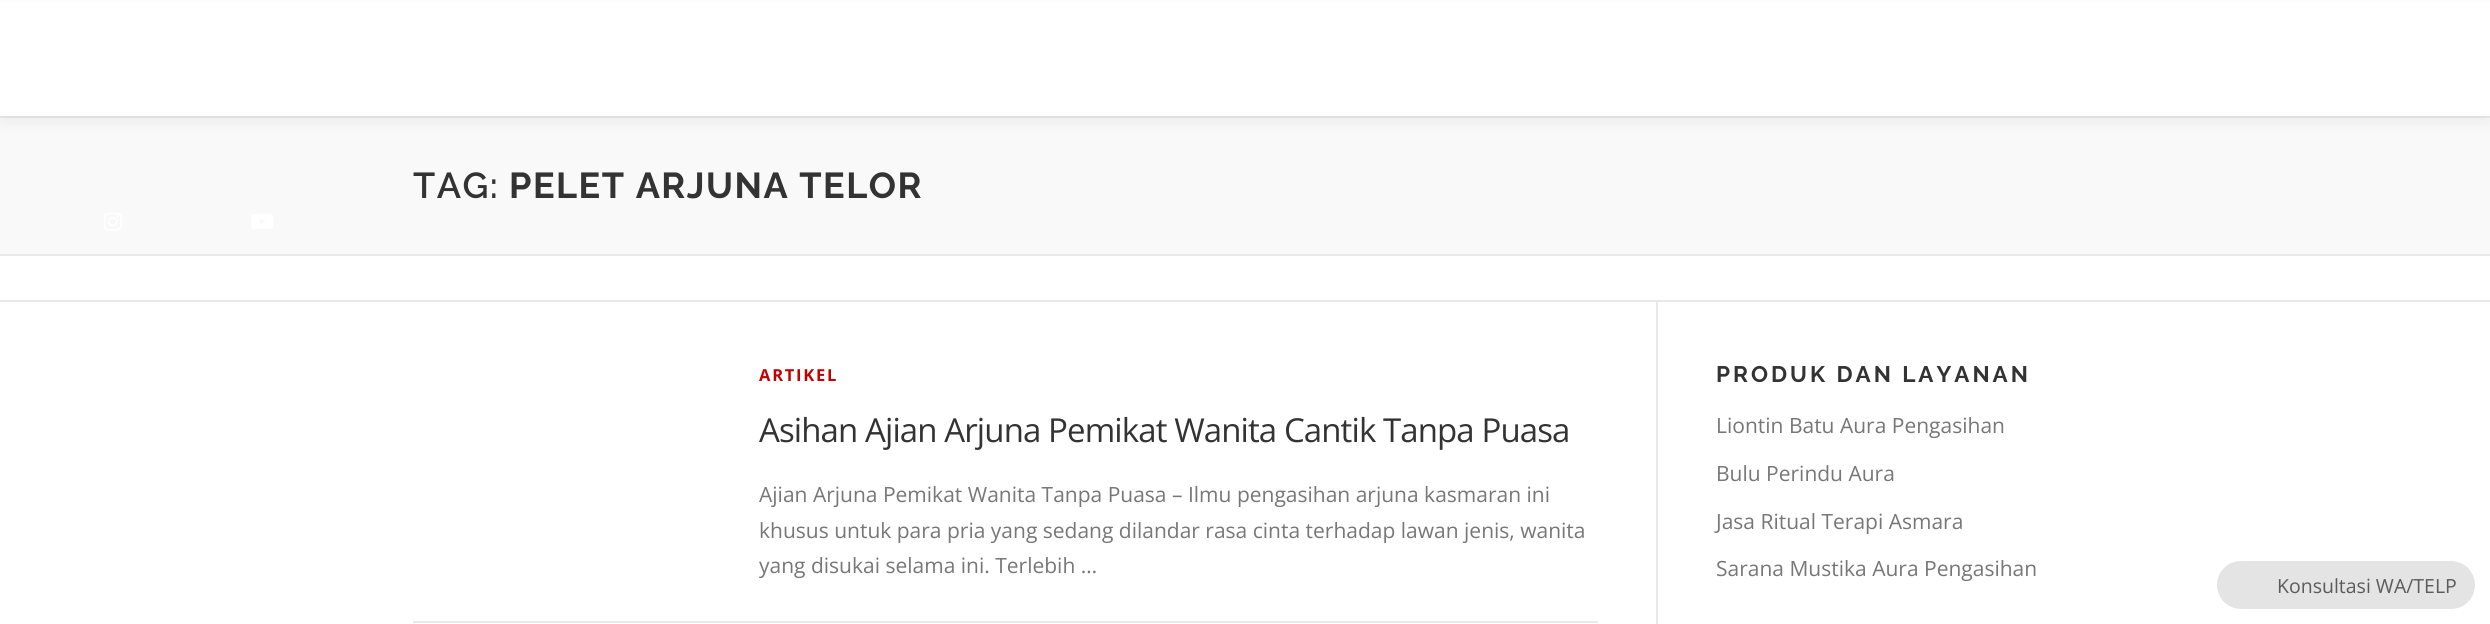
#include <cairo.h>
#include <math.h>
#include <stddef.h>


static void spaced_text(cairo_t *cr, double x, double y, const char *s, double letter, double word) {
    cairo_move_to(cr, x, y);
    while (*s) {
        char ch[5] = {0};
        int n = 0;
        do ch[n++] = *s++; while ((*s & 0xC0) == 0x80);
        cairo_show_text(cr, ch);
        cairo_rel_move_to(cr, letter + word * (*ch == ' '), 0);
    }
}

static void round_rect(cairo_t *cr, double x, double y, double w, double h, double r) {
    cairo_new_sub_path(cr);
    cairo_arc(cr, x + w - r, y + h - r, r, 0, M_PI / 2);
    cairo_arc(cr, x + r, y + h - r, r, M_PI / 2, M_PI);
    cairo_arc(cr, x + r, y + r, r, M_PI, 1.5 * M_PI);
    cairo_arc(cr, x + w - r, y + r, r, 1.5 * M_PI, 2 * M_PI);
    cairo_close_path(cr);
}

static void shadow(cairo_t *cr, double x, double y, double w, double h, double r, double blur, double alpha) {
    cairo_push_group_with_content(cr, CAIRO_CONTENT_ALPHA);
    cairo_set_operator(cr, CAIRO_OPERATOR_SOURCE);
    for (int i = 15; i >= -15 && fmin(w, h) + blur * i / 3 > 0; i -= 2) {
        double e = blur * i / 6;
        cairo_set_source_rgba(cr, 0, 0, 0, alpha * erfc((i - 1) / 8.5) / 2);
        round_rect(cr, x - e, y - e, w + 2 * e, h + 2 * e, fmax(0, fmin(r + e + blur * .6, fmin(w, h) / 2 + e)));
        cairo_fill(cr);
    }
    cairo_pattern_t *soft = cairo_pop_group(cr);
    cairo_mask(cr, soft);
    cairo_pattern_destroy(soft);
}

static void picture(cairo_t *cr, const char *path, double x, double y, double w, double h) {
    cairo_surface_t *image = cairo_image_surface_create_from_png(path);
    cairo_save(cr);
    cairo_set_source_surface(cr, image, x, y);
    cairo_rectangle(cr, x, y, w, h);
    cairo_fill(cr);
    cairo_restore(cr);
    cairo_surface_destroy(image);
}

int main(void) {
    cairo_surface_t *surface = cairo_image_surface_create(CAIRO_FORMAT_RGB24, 2490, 624);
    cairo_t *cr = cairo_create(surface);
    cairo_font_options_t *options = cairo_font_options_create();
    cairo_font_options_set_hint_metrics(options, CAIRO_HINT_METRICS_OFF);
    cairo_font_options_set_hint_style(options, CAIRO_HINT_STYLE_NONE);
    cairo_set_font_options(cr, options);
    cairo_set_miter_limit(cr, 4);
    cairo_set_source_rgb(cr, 1, 1, 1);
    cairo_paint(cr);
    cairo_set_source_rgb(cr, 0.973, 0.976, 0.976);
    cairo_rectangle(cr, 0, 118, 2490, 136);
    cairo_fill(cr);
    picture(cr, "img1.png", 104, 213, 18, 18);
    picture(cr, "img2.png", 251, 214, 22, 15);
    cairo_set_source_rgb(cr, 0.914, 0.914, 0.914);
    cairo_rectangle(cr, 0, 116, 2490, 2);
    cairo_fill(cr);
    cairo_set_source_rgb(cr, 0.196, 0.196, 0.196);
    shadow(cr, 0, 8, 2490, 115, 0, 7.5, 0.06);
    cairo_set_source_rgb(cr, 1, 1, 1);
    cairo_rectangle(cr, 0, 2, 2490, 114);
    cairo_fill(cr);
    cairo_set_source_rgb(cr, 0.914, 0.914, 0.914);
    cairo_rectangle(cr, 0, 254, 2490, 2);
    cairo_fill(cr);
    cairo_select_font_face(cr, "Raleway SemiBold", CAIRO_FONT_SLANT_NORMAL, CAIRO_FONT_WEIGHT_NORMAL);
    cairo_set_font_size(cr, 36);
    cairo_set_source_rgb(cr, 0.2, 0.2, 0.2);
    spaced_text(cr, 413, 198, "TAG:", 1.5, 0);
    cairo_select_font_face(cr, "Raleway", CAIRO_FONT_SLANT_NORMAL, CAIRO_FONT_WEIGHT_BOLD);
    spaced_text(cr, 509, 198, "PELET ARJUNA TELOR", 1.5, 0);
    cairo_set_source_rgb(cr, 0.914, 0.914, 0.914);
    cairo_rectangle(cr, 0, 300, 2490, 2);
    cairo_fill(cr);
    cairo_rectangle(cr, 1656, 302, 2, 322);
    cairo_fill(cr);
    cairo_rectangle(cr, 413, 621, 1185, 2);
    cairo_fill(cr);
    cairo_select_font_face(cr, "Open Sans", CAIRO_FONT_SLANT_NORMAL, CAIRO_FONT_WEIGHT_BOLD);
    cairo_set_font_size(cr, 16.5);
    cairo_set_source_rgb(cr, 0.757, 0, 0);
    spaced_text(cr, 759, 381, "ARTIKEL", 1.75, 0);
    cairo_select_font_face(cr, "Open Sans", CAIRO_FONT_SLANT_NORMAL, CAIRO_FONT_WEIGHT_NORMAL);
    cairo_set_font_size(cr, 33);
    cairo_set_source_rgb(cr, 0.2, 0.2, 0.2);
    spaced_text(cr, 759, 442, "Asihan Ajian Arjuna Pemikat Wanita Cantik Tanpa Puasa", -0.9, 0);
    cairo_set_font_size(cr, 21);
    cairo_set_source_rgb(cr, 0.467, 0.467, 0.467);
    cairo_move_to(cr, 759, 502);
    cairo_show_text(cr, "Ajian Arjuna Pemikat Wanita Tanpa Puasa – Ilmu pengasihan arjuna kasmaran ini");
    cairo_move_to(cr, 759, 538);
    cairo_show_text(cr, "khusus untuk para pria yang sedang dilandar rasa cinta terhadap lawan jenis, wanita");
    cairo_save(cr);
    cairo_rectangle(cr, 759, 362, 839, 222);
    cairo_clip(cr);
    cairo_move_to(cr, 759, 573);
    cairo_show_text(cr, "yang disukai selama ini. Terlebih …");
    cairo_restore(cr);
    cairo_select_font_face(cr, "Raleway", CAIRO_FONT_SLANT_NORMAL, CAIRO_FONT_WEIGHT_BOLD);
    cairo_set_font_size(cr, 22.5);
    cairo_set_source_rgb(cr, 0.2, 0.2, 0.2);
    spaced_text(cr, 1716, 382, "PRODUK DAN LAYANAN", 3, 0);
    cairo_select_font_face(cr, "Open Sans", CAIRO_FONT_SLANT_NORMAL, CAIRO_FONT_WEIGHT_NORMAL);
    cairo_set_font_size(cr, 21);
    cairo_set_source_rgb(cr, 0.467, 0.467, 0.467);
    cairo_move_to(cr, 1716, 433);
    cairo_show_text(cr, "Liontin Batu Aura Pengasihan");
    cairo_move_to(cr, 1716, 481);
    cairo_show_text(cr, "Bulu Perindu Aura");
    cairo_move_to(cr, 1716, 529);
    cairo_show_text(cr, "Jasa Ritual Terapi Asmara");
    cairo_move_to(cr, 1716, 576);
    cairo_show_text(cr, "Sarana Mustika Aura Pengasihan");
    cairo_set_source_rgb(cr, 0.894, 0.894, 0.894);
    round_rect(cr, 2217, 561, 258, 48, 24);
    cairo_fill(cr);
    cairo_set_font_size(cr, 19.5);
    cairo_set_source_rgb(cr, 0.357, 0.357, 0.357);
    cairo_move_to(cr, 2277, 593);
    cairo_show_text(cr, "Konsultasi WA/TELP");
    cairo_surface_write_to_png(surface, "page.png");
    cairo_font_options_destroy(options);
    cairo_destroy(cr);
    cairo_surface_destroy(surface);
    return 0;
}
